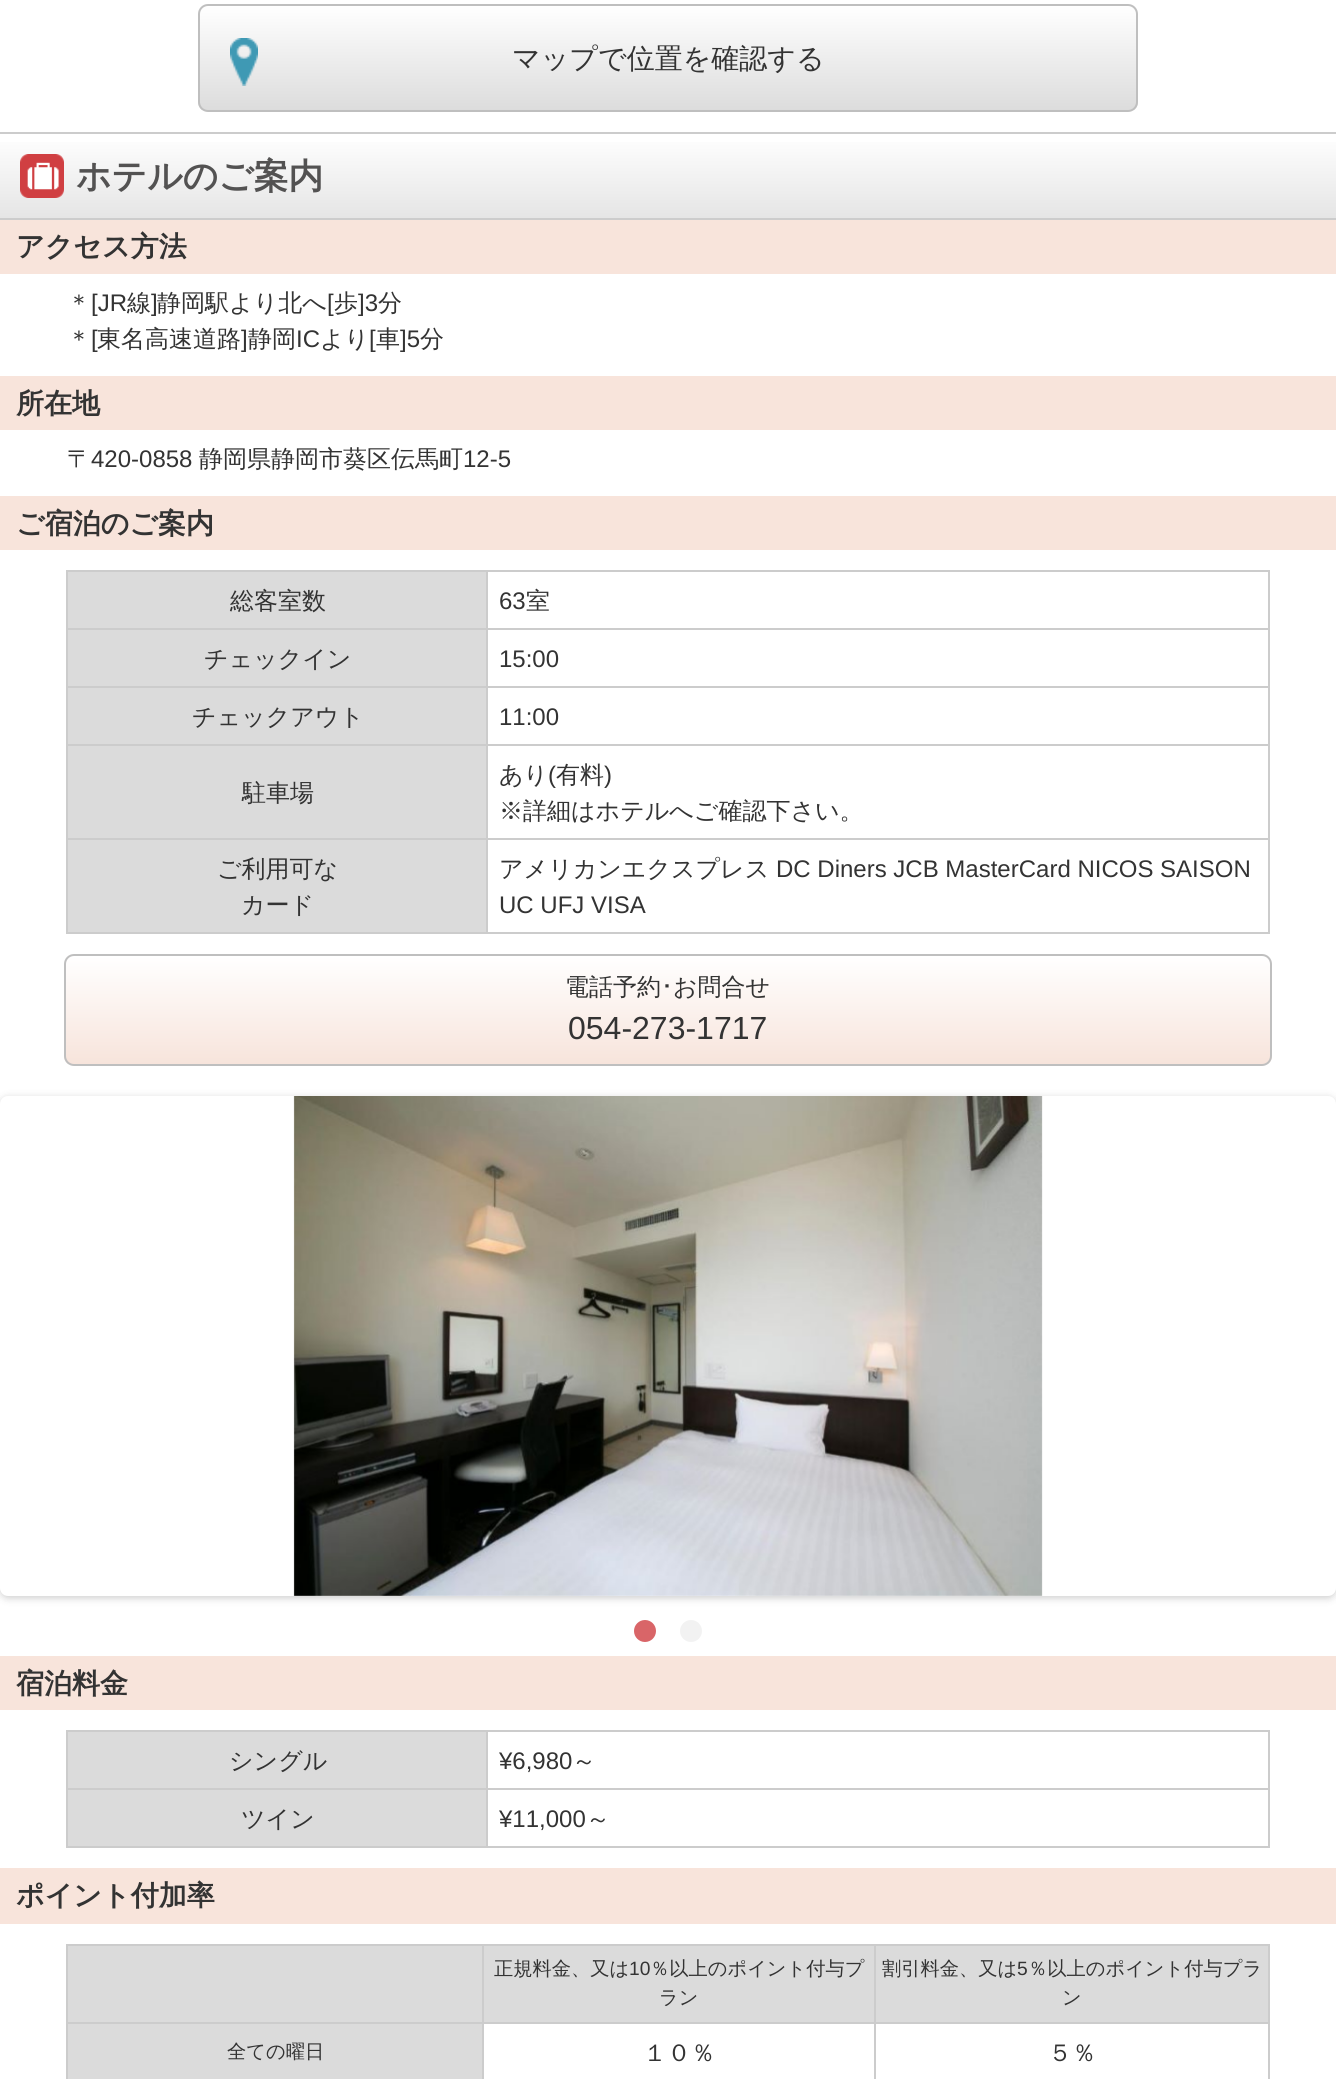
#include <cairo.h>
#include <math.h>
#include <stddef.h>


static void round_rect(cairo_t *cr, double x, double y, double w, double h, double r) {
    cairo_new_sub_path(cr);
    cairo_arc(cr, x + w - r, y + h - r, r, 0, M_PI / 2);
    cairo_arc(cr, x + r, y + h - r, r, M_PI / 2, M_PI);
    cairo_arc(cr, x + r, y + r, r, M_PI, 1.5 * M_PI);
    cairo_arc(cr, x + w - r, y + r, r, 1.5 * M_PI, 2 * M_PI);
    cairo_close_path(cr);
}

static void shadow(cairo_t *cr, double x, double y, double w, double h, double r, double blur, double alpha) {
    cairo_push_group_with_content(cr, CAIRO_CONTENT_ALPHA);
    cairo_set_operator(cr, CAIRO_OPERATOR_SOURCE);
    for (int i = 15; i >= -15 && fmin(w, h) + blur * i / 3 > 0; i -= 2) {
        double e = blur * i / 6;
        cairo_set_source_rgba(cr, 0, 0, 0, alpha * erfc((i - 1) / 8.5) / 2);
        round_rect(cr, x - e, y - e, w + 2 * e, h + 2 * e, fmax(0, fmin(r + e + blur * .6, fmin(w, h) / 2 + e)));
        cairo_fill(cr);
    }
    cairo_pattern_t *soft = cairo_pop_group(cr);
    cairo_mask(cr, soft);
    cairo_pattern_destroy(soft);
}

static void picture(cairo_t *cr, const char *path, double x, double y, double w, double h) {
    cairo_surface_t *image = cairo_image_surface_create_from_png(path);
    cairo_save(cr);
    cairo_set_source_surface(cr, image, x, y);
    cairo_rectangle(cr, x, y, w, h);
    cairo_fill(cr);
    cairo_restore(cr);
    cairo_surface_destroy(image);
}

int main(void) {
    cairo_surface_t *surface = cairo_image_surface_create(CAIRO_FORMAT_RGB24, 1336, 2079);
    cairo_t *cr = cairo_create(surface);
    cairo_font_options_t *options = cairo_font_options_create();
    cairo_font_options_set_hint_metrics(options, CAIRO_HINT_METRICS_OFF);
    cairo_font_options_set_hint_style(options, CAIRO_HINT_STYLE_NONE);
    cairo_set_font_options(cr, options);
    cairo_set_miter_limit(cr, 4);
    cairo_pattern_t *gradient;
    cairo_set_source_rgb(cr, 1, 1, 1);
    cairo_paint(cr);
    cairo_save(cr);
    round_rect(cr, 198, 4, 940, 108, 10);
    cairo_clip(cr);
    gradient = cairo_pattern_create_linear(668, 6, 668, 110);
    cairo_pattern_add_color_stop_rgba(gradient, 0, 1, 1, 1, 1);
    cairo_pattern_add_color_stop_rgba(gradient, 1, 0.863, 0.863, 0.863, 1);
    cairo_set_source(cr, gradient);
    cairo_pattern_destroy(gradient);
    cairo_rectangle(cr, 198, 6, 940, 104);
    cairo_fill(cr);
    cairo_restore(cr);
    round_rect(cr, 199, 5, 938, 106, 9);
    cairo_set_source_rgb(cr, 0.749, 0.749, 0.749);
    cairo_stroke(cr);
    picture(cr, "img1.png", 230, 38, 28, 48);
    cairo_select_font_face(cr, "WenQuanYi Zen Hei Medium", CAIRO_FONT_SLANT_NORMAL, CAIRO_FONT_WEIGHT_NORMAL);
    cairo_set_font_size(cr, 28);
    cairo_set_source_rgb(cr, 0.2, 0.2, 0.2);
    cairo_move_to(cr, 512, 68);
    cairo_show_text(cr, "マップで位置を確認する");
    gradient = cairo_pattern_create_linear(668, 134, 668, 218);
    cairo_pattern_add_color_stop_rgba(gradient, 0, 1, 1, 1, 1);
    cairo_pattern_add_color_stop_rgba(gradient, 1, 0.898, 0.898, 0.898, 1);
    cairo_set_source(cr, gradient);
    cairo_pattern_destroy(gradient);
    cairo_rectangle(cr, 0, 142, 1336, 76);
    cairo_fill(cr);
    cairo_set_source_rgb(cr, 0.8, 0.8, 0.8);
    cairo_rectangle(cr, 0, 132, 1336, 2);
    cairo_fill(cr);
    cairo_rectangle(cr, 0, 218, 1336, 2);
    cairo_fill(cr);
    picture(cr, "img2.png", 20, 154, 44, 44);
    cairo_select_font_face(cr, "WenQuanYi Zen Hei", CAIRO_FONT_SLANT_NORMAL, CAIRO_FONT_WEIGHT_BOLD);
    cairo_set_font_size(cr, 34.75);
    cairo_set_source_rgb(cr, 0.325, 0.322, 0.322);
    cairo_move_to(cr, 76, 188);
    cairo_show_text(cr, "ホテルのご案内");
    cairo_set_source_rgb(cr, 0.969, 0.894, 0.859);
    cairo_rectangle(cr, 0, 220, 1336, 54);
    cairo_fill(cr);
    cairo_set_font_size(cr, 28);
    cairo_set_source_rgb(cr, 0.2, 0.2, 0.2);
    cairo_move_to(cr, 16, 256);
    cairo_show_text(cr, "アクセス方法");
    cairo_select_font_face(cr, "WenQuanYi Zen Hei Medium", CAIRO_FONT_SLANT_NORMAL, CAIRO_FONT_WEIGHT_NORMAL);
    cairo_set_font_size(cr, 24);
    cairo_move_to(cr, 67, 311);
    cairo_show_text(cr, "＊");
    cairo_select_font_face(cr, "Liberation Sans", CAIRO_FONT_SLANT_NORMAL, CAIRO_FONT_WEIGHT_NORMAL);
    cairo_move_to(cr, 91, 311);
    cairo_show_text(cr, "[JR");
    cairo_select_font_face(cr, "WenQuanYi Zen Hei Medium", CAIRO_FONT_SLANT_NORMAL, CAIRO_FONT_WEIGHT_NORMAL);
    cairo_move_to(cr, 127, 311);
    cairo_show_text(cr, "線");
    cairo_select_font_face(cr, "Liberation Sans", CAIRO_FONT_SLANT_NORMAL, CAIRO_FONT_WEIGHT_NORMAL);
    cairo_move_to(cr, 151, 311);
    cairo_show_text(cr, "]");
    cairo_select_font_face(cr, "WenQuanYi Zen Hei Medium", CAIRO_FONT_SLANT_NORMAL, CAIRO_FONT_WEIGHT_NORMAL);
    cairo_move_to(cr, 157, 311);
    cairo_show_text(cr, "静岡駅より北へ");
    cairo_select_font_face(cr, "Liberation Sans", CAIRO_FONT_SLANT_NORMAL, CAIRO_FONT_WEIGHT_NORMAL);
    cairo_move_to(cr, 327, 311);
    cairo_show_text(cr, "[");
    cairo_select_font_face(cr, "WenQuanYi Zen Hei Medium", CAIRO_FONT_SLANT_NORMAL, CAIRO_FONT_WEIGHT_NORMAL);
    cairo_move_to(cr, 334, 311);
    cairo_show_text(cr, "歩");
    cairo_select_font_face(cr, "Liberation Sans", CAIRO_FONT_SLANT_NORMAL, CAIRO_FONT_WEIGHT_NORMAL);
    cairo_move_to(cr, 358, 311);
    cairo_show_text(cr, "]3");
    cairo_select_font_face(cr, "WenQuanYi Zen Hei Medium", CAIRO_FONT_SLANT_NORMAL, CAIRO_FONT_WEIGHT_NORMAL);
    cairo_move_to(cr, 378, 311);
    cairo_show_text(cr, "分");
    cairo_move_to(cr, 67, 347);
    cairo_show_text(cr, "＊");
    cairo_select_font_face(cr, "Liberation Sans", CAIRO_FONT_SLANT_NORMAL, CAIRO_FONT_WEIGHT_NORMAL);
    cairo_move_to(cr, 91, 347);
    cairo_show_text(cr, "[");
    cairo_select_font_face(cr, "WenQuanYi Zen Hei Medium", CAIRO_FONT_SLANT_NORMAL, CAIRO_FONT_WEIGHT_NORMAL);
    cairo_move_to(cr, 97, 347);
    cairo_show_text(cr, "東名高速道路");
    cairo_select_font_face(cr, "Liberation Sans", CAIRO_FONT_SLANT_NORMAL, CAIRO_FONT_WEIGHT_NORMAL);
    cairo_move_to(cr, 241, 347);
    cairo_show_text(cr, "]");
    cairo_select_font_face(cr, "WenQuanYi Zen Hei Medium", CAIRO_FONT_SLANT_NORMAL, CAIRO_FONT_WEIGHT_NORMAL);
    cairo_move_to(cr, 248, 347);
    cairo_show_text(cr, "静岡");
    cairo_select_font_face(cr, "Liberation Sans", CAIRO_FONT_SLANT_NORMAL, CAIRO_FONT_WEIGHT_NORMAL);
    cairo_move_to(cr, 296, 347);
    cairo_show_text(cr, "IC");
    cairo_select_font_face(cr, "WenQuanYi Zen Hei Medium", CAIRO_FONT_SLANT_NORMAL, CAIRO_FONT_WEIGHT_NORMAL);
    cairo_move_to(cr, 320, 347);
    cairo_show_text(cr, "より");
    cairo_select_font_face(cr, "Liberation Sans", CAIRO_FONT_SLANT_NORMAL, CAIRO_FONT_WEIGHT_NORMAL);
    cairo_move_to(cr, 369, 347);
    cairo_show_text(cr, "[");
    cairo_select_font_face(cr, "WenQuanYi Zen Hei Medium", CAIRO_FONT_SLANT_NORMAL, CAIRO_FONT_WEIGHT_NORMAL);
    cairo_move_to(cr, 376, 347);
    cairo_show_text(cr, "車");
    cairo_select_font_face(cr, "Liberation Sans", CAIRO_FONT_SLANT_NORMAL, CAIRO_FONT_WEIGHT_NORMAL);
    cairo_move_to(cr, 400, 347);
    cairo_show_text(cr, "]5");
    cairo_select_font_face(cr, "WenQuanYi Zen Hei Medium", CAIRO_FONT_SLANT_NORMAL, CAIRO_FONT_WEIGHT_NORMAL);
    cairo_move_to(cr, 420, 347);
    cairo_show_text(cr, "分");
    cairo_set_source_rgb(cr, 0.969, 0.894, 0.859);
    cairo_rectangle(cr, 0, 376, 1336, 54);
    cairo_fill(cr);
    cairo_select_font_face(cr, "WenQuanYi Zen Hei", CAIRO_FONT_SLANT_NORMAL, CAIRO_FONT_WEIGHT_BOLD);
    cairo_set_font_size(cr, 28);
    cairo_set_source_rgb(cr, 0.2, 0.2, 0.2);
    cairo_move_to(cr, 16, 413);
    cairo_show_text(cr, "所在地");
    cairo_select_font_face(cr, "WenQuanYi Zen Hei Medium", CAIRO_FONT_SLANT_NORMAL, CAIRO_FONT_WEIGHT_NORMAL);
    cairo_set_font_size(cr, 24);
    cairo_move_to(cr, 67, 467);
    cairo_show_text(cr, "〒");
    cairo_select_font_face(cr, "Liberation Sans", CAIRO_FONT_SLANT_NORMAL, CAIRO_FONT_WEIGHT_NORMAL);
    cairo_move_to(cr, 91, 467);
    cairo_show_text(cr, "420-0858");
    cairo_select_font_face(cr, "WenQuanYi Zen Hei Medium", CAIRO_FONT_SLANT_NORMAL, CAIRO_FONT_WEIGHT_NORMAL);
    cairo_move_to(cr, 199, 467);
    cairo_show_text(cr, "静岡県静岡市葵区伝馬町");
    cairo_select_font_face(cr, "Liberation Sans", CAIRO_FONT_SLANT_NORMAL, CAIRO_FONT_WEIGHT_NORMAL);
    cairo_move_to(cr, 463, 467);
    cairo_show_text(cr, "12-5");
    cairo_set_source_rgb(cr, 0.969, 0.894, 0.859);
    cairo_rectangle(cr, 0, 496, 1336, 54);
    cairo_fill(cr);
    cairo_select_font_face(cr, "WenQuanYi Zen Hei", CAIRO_FONT_SLANT_NORMAL, CAIRO_FONT_WEIGHT_BOLD);
    cairo_set_font_size(cr, 28);
    cairo_set_source_rgb(cr, 0.2, 0.2, 0.2);
    cairo_move_to(cr, 16, 533);
    cairo_show_text(cr, "ご宿泊のご案内");
    cairo_set_source_rgb(cr, 0.8, 0.8, 0.8);
    cairo_rectangle(cr, 66, 570, 1204, 2);
    cairo_fill(cr);
    cairo_rectangle(cr, 1268, 570, 2, 364);
    cairo_fill(cr);
    cairo_rectangle(cr, 66, 932, 1204, 2);
    cairo_fill(cr);
    cairo_rectangle(cr, 66, 570, 2, 364);
    cairo_fill(cr);
    cairo_set_source_rgb(cr, 0.859, 0.859, 0.859);
    cairo_rectangle(cr, 68, 572, 418, 56);
    cairo_fill(cr);
    cairo_select_font_face(cr, "WenQuanYi Zen Hei Medium", CAIRO_FONT_SLANT_NORMAL, CAIRO_FONT_WEIGHT_NORMAL);
    cairo_set_font_size(cr, 24);
    cairo_set_source_rgb(cr, 0.2, 0.2, 0.2);
    cairo_move_to(cr, 230, 609);
    cairo_show_text(cr, "総客室数");
    cairo_set_source_rgb(cr, 0.8, 0.8, 0.8);
    cairo_rectangle(cr, 486, 628, 784, 2);
    cairo_fill(cr);
    cairo_rectangle(cr, 486, 686, 784, 2);
    cairo_fill(cr);
    cairo_rectangle(cr, 486, 744, 784, 2);
    cairo_fill(cr);
    cairo_rectangle(cr, 486, 838, 784, 2);
    cairo_fill(cr);
    cairo_rectangle(cr, 486, 838, 2, 96);
    cairo_fill(cr);
    cairo_rectangle(cr, 66, 838, 422, 2);
    cairo_fill(cr);
    cairo_rectangle(cr, 486, 744, 2, 96);
    cairo_fill(cr);
    cairo_rectangle(cr, 66, 744, 422, 2);
    cairo_fill(cr);
    cairo_rectangle(cr, 486, 686, 2, 60);
    cairo_fill(cr);
    cairo_rectangle(cr, 66, 686, 422, 2);
    cairo_fill(cr);
    cairo_rectangle(cr, 486, 628, 2, 60);
    cairo_fill(cr);
    cairo_rectangle(cr, 66, 628, 422, 2);
    cairo_fill(cr);
    cairo_rectangle(cr, 486, 570, 2, 60);
    cairo_fill(cr);
    cairo_select_font_face(cr, "Liberation Sans", CAIRO_FONT_SLANT_NORMAL, CAIRO_FONT_WEIGHT_NORMAL);
    cairo_set_source_rgb(cr, 0.2, 0.2, 0.2);
    cairo_move_to(cr, 499, 609);
    cairo_show_text(cr, "63");
    cairo_select_font_face(cr, "WenQuanYi Zen Hei Medium", CAIRO_FONT_SLANT_NORMAL, CAIRO_FONT_WEIGHT_NORMAL);
    cairo_move_to(cr, 526, 609);
    cairo_show_text(cr, "室");
    cairo_set_source_rgb(cr, 0.859, 0.859, 0.859);
    cairo_rectangle(cr, 68, 630, 418, 56);
    cairo_fill(cr);
    cairo_set_source_rgb(cr, 0.2, 0.2, 0.2);
    cairo_move_to(cr, 204, 667);
    cairo_show_text(cr, "チェックイン");
    cairo_select_font_face(cr, "Liberation Sans", CAIRO_FONT_SLANT_NORMAL, CAIRO_FONT_WEIGHT_NORMAL);
    cairo_move_to(cr, 499, 667);
    cairo_show_text(cr, "15:00");
    cairo_set_source_rgb(cr, 0.859, 0.859, 0.859);
    cairo_rectangle(cr, 68, 688, 418, 56);
    cairo_fill(cr);
    cairo_select_font_face(cr, "WenQuanYi Zen Hei Medium", CAIRO_FONT_SLANT_NORMAL, CAIRO_FONT_WEIGHT_NORMAL);
    cairo_set_source_rgb(cr, 0.2, 0.2, 0.2);
    cairo_move_to(cr, 192, 725);
    cairo_show_text(cr, "チェックアウト");
    cairo_select_font_face(cr, "Liberation Sans", CAIRO_FONT_SLANT_NORMAL, CAIRO_FONT_WEIGHT_NORMAL);
    cairo_move_to(cr, 499, 725);
    cairo_show_text(cr, "11:00");
    cairo_set_source_rgb(cr, 0.859, 0.859, 0.859);
    cairo_rectangle(cr, 68, 746, 418, 92);
    cairo_fill(cr);
    cairo_select_font_face(cr, "WenQuanYi Zen Hei Medium", CAIRO_FONT_SLANT_NORMAL, CAIRO_FONT_WEIGHT_NORMAL);
    cairo_set_source_rgb(cr, 0.2, 0.2, 0.2);
    cairo_move_to(cr, 242, 801);
    cairo_show_text(cr, "駐車場");
    cairo_move_to(cr, 499, 783);
    cairo_show_text(cr, "あり");
    cairo_select_font_face(cr, "Liberation Sans", CAIRO_FONT_SLANT_NORMAL, CAIRO_FONT_WEIGHT_NORMAL);
    cairo_move_to(cr, 548, 783);
    cairo_show_text(cr, "(");
    cairo_select_font_face(cr, "WenQuanYi Zen Hei Medium", CAIRO_FONT_SLANT_NORMAL, CAIRO_FONT_WEIGHT_NORMAL);
    cairo_move_to(cr, 556, 783);
    cairo_show_text(cr, "有料");
    cairo_select_font_face(cr, "Liberation Sans", CAIRO_FONT_SLANT_NORMAL, CAIRO_FONT_WEIGHT_NORMAL);
    cairo_move_to(cr, 604, 783);
    cairo_show_text(cr, ")");
    cairo_select_font_face(cr, "WenQuanYi Zen Hei Medium", CAIRO_FONT_SLANT_NORMAL, CAIRO_FONT_WEIGHT_NORMAL);
    cairo_move_to(cr, 499, 819);
    cairo_show_text(cr, "※詳細はホテルへご確認下さい。");
    cairo_set_source_rgb(cr, 0.859, 0.859, 0.859);
    cairo_rectangle(cr, 68, 840, 418, 92);
    cairo_fill(cr);
    cairo_set_source_rgb(cr, 0.2, 0.2, 0.2);
    cairo_move_to(cr, 217, 877);
    cairo_show_text(cr, "ご利用可な");
    cairo_move_to(cr, 241, 913);
    cairo_show_text(cr, "カード");
    cairo_move_to(cr, 499, 877);
    cairo_show_text(cr, "アメリカンエクスプレス");
    cairo_select_font_face(cr, "Liberation Sans", CAIRO_FONT_SLANT_NORMAL, CAIRO_FONT_WEIGHT_NORMAL);
    cairo_move_to(cr, 776, 877);
    cairo_show_text(cr, "DC Diners JCB MasterCard NICOS SAISON");
    cairo_move_to(cr, 499, 913);
    cairo_show_text(cr, "UC UFJ VISA");
    cairo_save(cr);
    round_rect(cr, 64, 954, 1208, 112, 10);
    cairo_clip(cr);
    gradient = cairo_pattern_create_linear(668, 956, 668, 1064);
    cairo_pattern_add_color_stop_rgba(gradient, 0, 1, 1, 1, 1);
    cairo_pattern_add_color_stop_rgba(gradient, 1, 0.969, 0.894, 0.859, 1);
    cairo_set_source(cr, gradient);
    cairo_pattern_destroy(gradient);
    cairo_rectangle(cr, 64, 956, 1208, 108);
    cairo_fill(cr);
    cairo_restore(cr);
    round_rect(cr, 65, 955, 1206, 110, 9);
    cairo_set_source_rgb(cr, 0.749, 0.749, 0.749);
    cairo_stroke(cr);
    cairo_select_font_face(cr, "WenQuanYi Zen Hei Medium", CAIRO_FONT_SLANT_NORMAL, CAIRO_FONT_WEIGHT_NORMAL);
    cairo_set_source_rgb(cr, 0.2, 0.2, 0.2);
    cairo_move_to(cr, 565, 995);
    cairo_show_text(cr, "電話予約");
    cairo_select_font_face(cr, "IPAPGothic", CAIRO_FONT_SLANT_NORMAL, CAIRO_FONT_WEIGHT_NORMAL);
    cairo_move_to(cr, 661, 995);
    cairo_show_text(cr, "･");
    cairo_select_font_face(cr, "WenQuanYi Zen Hei Medium", CAIRO_FONT_SLANT_NORMAL, CAIRO_FONT_WEIGHT_NORMAL);
    cairo_move_to(cr, 673, 995);
    cairo_show_text(cr, "お問合せ");
    cairo_select_font_face(cr, "Liberation Sans", CAIRO_FONT_SLANT_NORMAL, CAIRO_FONT_WEIGHT_NORMAL);
    cairo_set_font_size(cr, 32);
    cairo_move_to(cr, 568, 1039);
    cairo_show_text(cr, "054-273-1717");
    cairo_set_source_rgb(cr, 0, 0, 0);
    shadow(cr, 0, 1098, 1336, 500, 8, 4, 0.2);
    cairo_set_source_rgb(cr, 1, 1, 1);
    round_rect(cr, 0, 1096, 1336, 500, 8);
    cairo_fill(cr);
    picture(cr, "img3.png", 293, 1096, 750, 500);
    cairo_set_source_rgb(cr, 0.851, 0.396, 0.408);
    cairo_arc(cr, 645, 1631, 11, 0, 2 * M_PI);
    cairo_fill(cr);
    cairo_set_source_rgb(cr, 0.949, 0.949, 0.949);
    cairo_arc(cr, 691, 1631, 11, 0, 2 * M_PI);
    cairo_fill(cr);
    cairo_set_source_rgb(cr, 0.969, 0.894, 0.859);
    cairo_rectangle(cr, 0, 1656, 1336, 54);
    cairo_fill(cr);
    cairo_select_font_face(cr, "WenQuanYi Zen Hei", CAIRO_FONT_SLANT_NORMAL, CAIRO_FONT_WEIGHT_BOLD);
    cairo_set_font_size(cr, 28);
    cairo_set_source_rgb(cr, 0.2, 0.2, 0.2);
    cairo_move_to(cr, 16, 1693);
    cairo_show_text(cr, "宿泊料金");
    cairo_set_source_rgb(cr, 0.8, 0.8, 0.8);
    cairo_rectangle(cr, 66, 1730, 1204, 2);
    cairo_fill(cr);
    cairo_rectangle(cr, 1268, 1730, 2, 118);
    cairo_fill(cr);
    cairo_rectangle(cr, 66, 1846, 1204, 2);
    cairo_fill(cr);
    cairo_rectangle(cr, 66, 1730, 2, 118);
    cairo_fill(cr);
    cairo_set_source_rgb(cr, 0.859, 0.859, 0.859);
    cairo_rectangle(cr, 68, 1732, 418, 56);
    cairo_fill(cr);
    cairo_select_font_face(cr, "WenQuanYi Zen Hei Medium", CAIRO_FONT_SLANT_NORMAL, CAIRO_FONT_WEIGHT_NORMAL);
    cairo_set_font_size(cr, 24);
    cairo_set_source_rgb(cr, 0.2, 0.2, 0.2);
    cairo_move_to(cr, 229, 1769);
    cairo_show_text(cr, "シングル");
    cairo_set_source_rgb(cr, 0.8, 0.8, 0.8);
    cairo_rectangle(cr, 486, 1788, 784, 2);
    cairo_fill(cr);
    cairo_rectangle(cr, 486, 1788, 2, 60);
    cairo_fill(cr);
    cairo_rectangle(cr, 66, 1788, 422, 2);
    cairo_fill(cr);
    cairo_rectangle(cr, 486, 1730, 2, 60);
    cairo_fill(cr);
    cairo_select_font_face(cr, "Liberation Sans", CAIRO_FONT_SLANT_NORMAL, CAIRO_FONT_WEIGHT_NORMAL);
    cairo_set_source_rgb(cr, 0.2, 0.2, 0.2);
    cairo_move_to(cr, 499, 1769);
    cairo_show_text(cr, "¥6,980");
    cairo_select_font_face(cr, "WenQuanYi Zen Hei Medium", CAIRO_FONT_SLANT_NORMAL, CAIRO_FONT_WEIGHT_NORMAL);
    cairo_move_to(cr, 572, 1769);
    cairo_show_text(cr, "～");
    cairo_set_source_rgb(cr, 0.859, 0.859, 0.859);
    cairo_rectangle(cr, 68, 1790, 418, 56);
    cairo_fill(cr);
    cairo_set_source_rgb(cr, 0.2, 0.2, 0.2);
    cairo_move_to(cr, 241, 1827);
    cairo_show_text(cr, "ツイン");
    cairo_select_font_face(cr, "Liberation Sans", CAIRO_FONT_SLANT_NORMAL, CAIRO_FONT_WEIGHT_NORMAL);
    cairo_move_to(cr, 499, 1827);
    cairo_show_text(cr, "¥11,000");
    cairo_select_font_face(cr, "WenQuanYi Zen Hei Medium", CAIRO_FONT_SLANT_NORMAL, CAIRO_FONT_WEIGHT_NORMAL);
    cairo_move_to(cr, 586, 1827);
    cairo_show_text(cr, "～");
    cairo_set_source_rgb(cr, 0.969, 0.894, 0.859);
    cairo_rectangle(cr, 0, 1868, 1336, 56);
    cairo_fill(cr);
    cairo_select_font_face(cr, "WenQuanYi Zen Hei", CAIRO_FONT_SLANT_NORMAL, CAIRO_FONT_WEIGHT_BOLD);
    cairo_set_font_size(cr, 28);
    cairo_set_source_rgb(cr, 0.2, 0.2, 0.2);
    cairo_move_to(cr, 16, 1905);
    cairo_show_text(cr, "ポイント付加率");
    cairo_set_source_rgb(cr, 0.8, 0.8, 0.8);
    cairo_rectangle(cr, 66, 1944, 1204, 2);
    cairo_fill(cr);
    cairo_rectangle(cr, 1268, 1944, 2, 135);
    cairo_fill(cr);
    cairo_rectangle(cr, 66, 1944, 2, 135);
    cairo_fill(cr);
    cairo_set_source_rgb(cr, 0.859, 0.859, 0.859);
    cairo_rectangle(cr, 68, 1946, 414, 76);
    cairo_fill(cr);
    cairo_rectangle(cr, 484, 1946, 390, 76);
    cairo_fill(cr);
    cairo_set_source_rgb(cr, 0.8, 0.8, 0.8);
    cairo_rectangle(cr, 874, 2022, 396, 2);
    cairo_fill(cr);
    cairo_rectangle(cr, 874, 2022, 2, 57);
    cairo_fill(cr);
    cairo_rectangle(cr, 482, 2022, 394, 2);
    cairo_fill(cr);
    cairo_rectangle(cr, 482, 2022, 2, 57);
    cairo_fill(cr);
    cairo_rectangle(cr, 66, 2022, 418, 2);
    cairo_fill(cr);
    cairo_rectangle(cr, 482, 1944, 2, 80);
    cairo_fill(cr);
    cairo_select_font_face(cr, "WenQuanYi Zen Hei Medium", CAIRO_FONT_SLANT_NORMAL, CAIRO_FONT_WEIGHT_NORMAL);
    cairo_set_font_size(cr, 19.25);
    cairo_set_source_rgb(cr, 0.2, 0.2, 0.2);
    cairo_move_to(cr, 494, 1975);
    cairo_show_text(cr, "正規料金、又は");
    cairo_select_font_face(cr, "Liberation Sans", CAIRO_FONT_SLANT_NORMAL, CAIRO_FONT_WEIGHT_NORMAL);
    cairo_move_to(cr, 629, 1975);
    cairo_show_text(cr, "10");
    cairo_select_font_face(cr, "WenQuanYi Zen Hei Medium", CAIRO_FONT_SLANT_NORMAL, CAIRO_FONT_WEIGHT_NORMAL);
    cairo_move_to(cr, 650, 1975);
    cairo_show_text(cr, "％以上のポイント付与プ");
    cairo_move_to(cr, 659, 2004);
    cairo_show_text(cr, "ラン");
    cairo_set_source_rgb(cr, 0.859, 0.859, 0.859);
    cairo_rectangle(cr, 876, 1946, 392, 76);
    cairo_fill(cr);
    cairo_set_source_rgb(cr, 0.8, 0.8, 0.8);
    cairo_rectangle(cr, 874, 1944, 2, 80);
    cairo_fill(cr);
    cairo_set_source_rgb(cr, 0.2, 0.2, 0.2);
    cairo_move_to(cr, 882, 1975);
    cairo_show_text(cr, "割引料金、又は");
    cairo_select_font_face(cr, "Liberation Sans", CAIRO_FONT_SLANT_NORMAL, CAIRO_FONT_WEIGHT_NORMAL);
    cairo_move_to(cr, 1017, 1975);
    cairo_show_text(cr, "5");
    cairo_select_font_face(cr, "WenQuanYi Zen Hei Medium", CAIRO_FONT_SLANT_NORMAL, CAIRO_FONT_WEIGHT_NORMAL);
    cairo_move_to(cr, 1028, 1975);
    cairo_show_text(cr, "％以上のポイント付与プラ");
    cairo_move_to(cr, 1062, 2004);
    cairo_show_text(cr, "ン");
    cairo_set_source_rgb(cr, 0.859, 0.859, 0.859);
    cairo_rectangle(cr, 68, 2024, 414, 55);
    cairo_fill(cr);
    cairo_set_source_rgb(cr, 0.2, 0.2, 0.2);
    cairo_move_to(cr, 227, 2058);
    cairo_show_text(cr, "全ての曜日");
    cairo_set_font_size(cr, 24);
    cairo_move_to(cr, 643, 2061);
    cairo_show_text(cr, "１０％");
    cairo_move_to(cr, 1048, 2061);
    cairo_show_text(cr, "５％");
    cairo_surface_write_to_png(surface, "page.png");
    cairo_font_options_destroy(options);
    cairo_destroy(cr);
    cairo_surface_destroy(surface);
    return 0;
}
